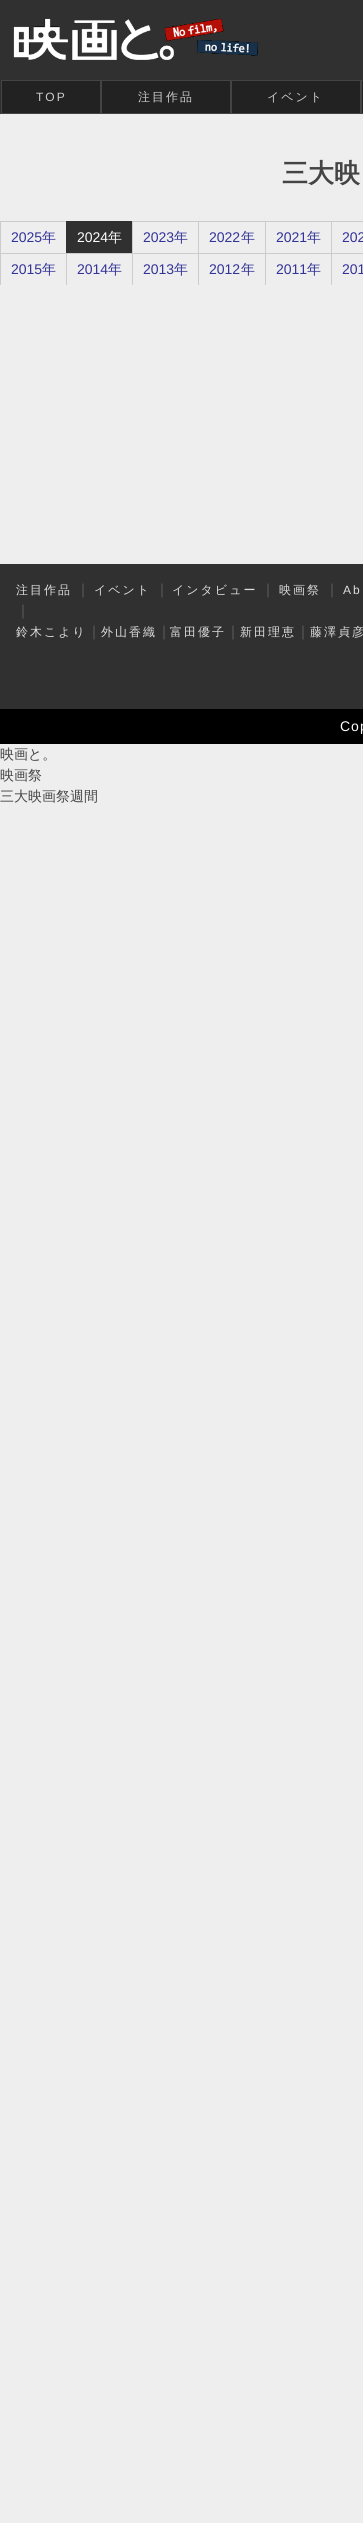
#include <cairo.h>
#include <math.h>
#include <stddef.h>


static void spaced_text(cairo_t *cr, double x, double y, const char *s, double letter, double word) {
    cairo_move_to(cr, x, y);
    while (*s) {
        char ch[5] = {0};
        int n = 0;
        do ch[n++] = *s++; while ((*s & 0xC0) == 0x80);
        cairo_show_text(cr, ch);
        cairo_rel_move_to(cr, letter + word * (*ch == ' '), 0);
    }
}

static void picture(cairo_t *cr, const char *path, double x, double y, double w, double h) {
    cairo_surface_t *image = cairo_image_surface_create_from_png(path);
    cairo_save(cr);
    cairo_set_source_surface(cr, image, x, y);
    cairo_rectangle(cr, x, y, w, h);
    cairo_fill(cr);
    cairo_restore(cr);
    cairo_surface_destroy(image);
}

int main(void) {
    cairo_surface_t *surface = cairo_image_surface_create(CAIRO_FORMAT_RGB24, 363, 2523);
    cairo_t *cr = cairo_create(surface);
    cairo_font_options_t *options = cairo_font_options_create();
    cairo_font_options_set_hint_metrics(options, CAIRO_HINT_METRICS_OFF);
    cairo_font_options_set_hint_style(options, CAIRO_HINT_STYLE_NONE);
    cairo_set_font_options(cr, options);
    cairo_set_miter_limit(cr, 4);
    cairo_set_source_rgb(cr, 0.933, 0.933, 0.933);
    cairo_paint(cr);
    cairo_set_source_rgb(cr, 0.188, 0.188, 0.188);
    cairo_rectangle(cr, 0, 0, 363, 114);
    cairo_fill(cr);
    picture(cr, "img1.png", 13, 18, 245, 42);
    cairo_set_source_rgb(cr, 0.133, 0.133, 0.133);
    cairo_rectangle(cr, 1.5, 80.5, 99, 33);
    cairo_fill_preserve(cr);
    cairo_set_source_rgb(cr, 0.267, 0.267, 0.267);
    cairo_set_line_width(cr, 1);
    cairo_stroke(cr);
    cairo_select_font_face(cr, "Liberation Sans", CAIRO_FONT_SLANT_NORMAL, CAIRO_FONT_WEIGHT_NORMAL);
    cairo_set_font_size(cr, 12);
    cairo_set_source_rgb(cr, 0.8, 0.8, 0.8);
    spaced_text(cr, 36, 101, "TOP", 2, 0);
    cairo_set_source_rgb(cr, 0.133, 0.133, 0.133);
    cairo_rectangle(cr, 101.5, 80.5, 129, 33);
    cairo_fill_preserve(cr);
    cairo_set_source_rgb(cr, 0.267, 0.267, 0.267);
    cairo_stroke(cr);
    cairo_select_font_face(cr, "WenQuanYi Zen Hei Medium", CAIRO_FONT_SLANT_NORMAL, CAIRO_FONT_WEIGHT_NORMAL);
    cairo_set_source_rgb(cr, 0.8, 0.8, 0.8);
    spaced_text(cr, 138, 101, "注目作品", 2, 0);
    cairo_set_source_rgb(cr, 0.133, 0.133, 0.133);
    cairo_rectangle(cr, 231.5, 80.5, 129, 33);
    cairo_fill_preserve(cr);
    cairo_set_source_rgb(cr, 0.267, 0.267, 0.267);
    cairo_stroke(cr);
    cairo_set_source_rgb(cr, 0.8, 0.8, 0.8);
    spaced_text(cr, 267, 101, "イベント", 2, 0);
    cairo_set_source_rgb(cr, 0.133, 0.133, 0.133);
    cairo_rectangle(cr, 361.5, 80.5, 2, 33);
    cairo_fill_preserve(cr);
    cairo_set_source_rgb(cr, 0.267, 0.267, 0.267);
    cairo_stroke(cr);
    cairo_select_font_face(cr, "WenQuanYi Zen Hei", CAIRO_FONT_SLANT_NORMAL, CAIRO_FONT_WEIGHT_BOLD);
    cairo_set_font_size(cr, 26);
    cairo_move_to(cr, 282, 182);
    cairo_show_text(cr, "三大映");
    cairo_set_source_rgb(cr, 0.8, 0.8, 0.8);
    cairo_rectangle(cr, 0, 221, 67, 1);
    cairo_fill(cr);
    cairo_rectangle(cr, 0, 221, 1, 32);
    cairo_fill(cr);
    cairo_select_font_face(cr, "Liberation Sans", CAIRO_FONT_SLANT_NORMAL, CAIRO_FONT_WEIGHT_NORMAL);
    cairo_set_font_size(cr, 14);
    cairo_set_source_rgb(cr, 0.2, 0.2, 0.6);
    cairo_move_to(cr, 11, 242);
    cairo_show_text(cr, "2025");
    cairo_select_font_face(cr, "WenQuanYi Zen Hei Medium", CAIRO_FONT_SLANT_NORMAL, CAIRO_FONT_WEIGHT_NORMAL);
    cairo_move_to(cr, 42, 242);
    cairo_show_text(cr, "年");
    cairo_set_source_rgb(cr, 0.188, 0.188, 0.188);
    cairo_rectangle(cr, 66, 221, 66, 32);
    cairo_fill(cr);
    cairo_select_font_face(cr, "Liberation Sans", CAIRO_FONT_SLANT_NORMAL, CAIRO_FONT_WEIGHT_NORMAL);
    cairo_set_source_rgb(cr, 1, 1, 1);
    cairo_move_to(cr, 77, 242);
    cairo_show_text(cr, "2024");
    cairo_select_font_face(cr, "WenQuanYi Zen Hei Medium", CAIRO_FONT_SLANT_NORMAL, CAIRO_FONT_WEIGHT_NORMAL);
    cairo_move_to(cr, 108, 242);
    cairo_show_text(cr, "年");
    cairo_set_source_rgb(cr, 0.8, 0.8, 0.8);
    cairo_rectangle(cr, 132, 221, 67, 1);
    cairo_fill(cr);
    cairo_rectangle(cr, 198, 221, 1, 32);
    cairo_fill(cr);
    cairo_rectangle(cr, 132, 221, 1, 32);
    cairo_fill(cr);
    cairo_select_font_face(cr, "Liberation Sans", CAIRO_FONT_SLANT_NORMAL, CAIRO_FONT_WEIGHT_NORMAL);
    cairo_set_source_rgb(cr, 0.2, 0.2, 0.6);
    cairo_move_to(cr, 143, 242);
    cairo_show_text(cr, "2023");
    cairo_select_font_face(cr, "WenQuanYi Zen Hei Medium", CAIRO_FONT_SLANT_NORMAL, CAIRO_FONT_WEIGHT_NORMAL);
    cairo_move_to(cr, 174, 242);
    cairo_show_text(cr, "年");
    cairo_set_source_rgb(cr, 0.8, 0.8, 0.8);
    cairo_rectangle(cr, 198, 221, 68, 1);
    cairo_fill(cr);
    cairo_rectangle(cr, 265, 221, 1, 32);
    cairo_fill(cr);
    cairo_select_font_face(cr, "Liberation Sans", CAIRO_FONT_SLANT_NORMAL, CAIRO_FONT_WEIGHT_NORMAL);
    cairo_set_source_rgb(cr, 0.2, 0.2, 0.6);
    cairo_move_to(cr, 209, 242);
    cairo_show_text(cr, "2022");
    cairo_select_font_face(cr, "WenQuanYi Zen Hei Medium", CAIRO_FONT_SLANT_NORMAL, CAIRO_FONT_WEIGHT_NORMAL);
    cairo_move_to(cr, 241, 242);
    cairo_show_text(cr, "年");
    cairo_set_source_rgb(cr, 0.8, 0.8, 0.8);
    cairo_rectangle(cr, 265, 221, 67, 1);
    cairo_fill(cr);
    cairo_rectangle(cr, 331, 221, 1, 32);
    cairo_fill(cr);
    cairo_select_font_face(cr, "Liberation Sans", CAIRO_FONT_SLANT_NORMAL, CAIRO_FONT_WEIGHT_NORMAL);
    cairo_set_source_rgb(cr, 0.2, 0.2, 0.6);
    cairo_move_to(cr, 276, 242);
    cairo_show_text(cr, "2021");
    cairo_select_font_face(cr, "WenQuanYi Zen Hei Medium", CAIRO_FONT_SLANT_NORMAL, CAIRO_FONT_WEIGHT_NORMAL);
    cairo_move_to(cr, 307, 242);
    cairo_show_text(cr, "年");
    cairo_set_source_rgb(cr, 0.8, 0.8, 0.8);
    cairo_rectangle(cr, 331, 221, 32, 1);
    cairo_fill(cr);
    cairo_select_font_face(cr, "Liberation Sans", CAIRO_FONT_SLANT_NORMAL, CAIRO_FONT_WEIGHT_NORMAL);
    cairo_set_source_rgb(cr, 0.2, 0.2, 0.6);
    cairo_move_to(cr, 342, 242);
    cairo_show_text(cr, "202");
    cairo_set_source_rgb(cr, 0.8, 0.8, 0.8);
    cairo_rectangle(cr, 0, 253, 67, 1);
    cairo_fill(cr);
    cairo_rectangle(cr, 66, 253, 1, 32);
    cairo_fill(cr);
    cairo_rectangle(cr, 0, 253, 1, 32);
    cairo_fill(cr);
    cairo_set_source_rgb(cr, 0.2, 0.2, 0.6);
    cairo_move_to(cr, 11, 274);
    cairo_show_text(cr, "2015");
    cairo_select_font_face(cr, "WenQuanYi Zen Hei Medium", CAIRO_FONT_SLANT_NORMAL, CAIRO_FONT_WEIGHT_NORMAL);
    cairo_move_to(cr, 42, 274);
    cairo_show_text(cr, "年");
    cairo_set_source_rgb(cr, 0.8, 0.8, 0.8);
    cairo_rectangle(cr, 66, 253, 67, 1);
    cairo_fill(cr);
    cairo_rectangle(cr, 132, 253, 1, 32);
    cairo_fill(cr);
    cairo_select_font_face(cr, "Liberation Sans", CAIRO_FONT_SLANT_NORMAL, CAIRO_FONT_WEIGHT_NORMAL);
    cairo_set_source_rgb(cr, 0.2, 0.2, 0.6);
    cairo_move_to(cr, 77, 274);
    cairo_show_text(cr, "2014");
    cairo_select_font_face(cr, "WenQuanYi Zen Hei Medium", CAIRO_FONT_SLANT_NORMAL, CAIRO_FONT_WEIGHT_NORMAL);
    cairo_move_to(cr, 108, 274);
    cairo_show_text(cr, "年");
    cairo_set_source_rgb(cr, 0.8, 0.8, 0.8);
    cairo_rectangle(cr, 132, 253, 67, 1);
    cairo_fill(cr);
    cairo_rectangle(cr, 198, 253, 1, 32);
    cairo_fill(cr);
    cairo_select_font_face(cr, "Liberation Sans", CAIRO_FONT_SLANT_NORMAL, CAIRO_FONT_WEIGHT_NORMAL);
    cairo_set_source_rgb(cr, 0.2, 0.2, 0.6);
    cairo_move_to(cr, 143, 274);
    cairo_show_text(cr, "2013");
    cairo_select_font_face(cr, "WenQuanYi Zen Hei Medium", CAIRO_FONT_SLANT_NORMAL, CAIRO_FONT_WEIGHT_NORMAL);
    cairo_move_to(cr, 174, 274);
    cairo_show_text(cr, "年");
    cairo_set_source_rgb(cr, 0.8, 0.8, 0.8);
    cairo_rectangle(cr, 198, 253, 68, 1);
    cairo_fill(cr);
    cairo_rectangle(cr, 265, 253, 1, 32);
    cairo_fill(cr);
    cairo_select_font_face(cr, "Liberation Sans", CAIRO_FONT_SLANT_NORMAL, CAIRO_FONT_WEIGHT_NORMAL);
    cairo_set_source_rgb(cr, 0.2, 0.2, 0.6);
    cairo_move_to(cr, 209, 274);
    cairo_show_text(cr, "2012");
    cairo_select_font_face(cr, "WenQuanYi Zen Hei Medium", CAIRO_FONT_SLANT_NORMAL, CAIRO_FONT_WEIGHT_NORMAL);
    cairo_move_to(cr, 241, 274);
    cairo_show_text(cr, "年");
    cairo_set_source_rgb(cr, 0.8, 0.8, 0.8);
    cairo_rectangle(cr, 265, 253, 67, 1);
    cairo_fill(cr);
    cairo_rectangle(cr, 331, 253, 1, 32);
    cairo_fill(cr);
    cairo_select_font_face(cr, "Liberation Sans", CAIRO_FONT_SLANT_NORMAL, CAIRO_FONT_WEIGHT_NORMAL);
    cairo_set_source_rgb(cr, 0.2, 0.2, 0.6);
    cairo_move_to(cr, 276, 274);
    cairo_show_text(cr, "2011");
    cairo_select_font_face(cr, "WenQuanYi Zen Hei Medium", CAIRO_FONT_SLANT_NORMAL, CAIRO_FONT_WEIGHT_NORMAL);
    cairo_move_to(cr, 307, 274);
    cairo_show_text(cr, "年");
    cairo_set_source_rgb(cr, 0.8, 0.8, 0.8);
    cairo_rectangle(cr, 331, 253, 32, 1);
    cairo_fill(cr);
    cairo_select_font_face(cr, "Liberation Sans", CAIRO_FONT_SLANT_NORMAL, CAIRO_FONT_WEIGHT_NORMAL);
    cairo_set_source_rgb(cr, 0.2, 0.2, 0.6);
    cairo_move_to(cr, 342, 274);
    cairo_show_text(cr, "201");
    cairo_set_source_rgb(cr, 0.188, 0.188, 0.188);
    cairo_rectangle(cr, 0, 564, 363, 145);
    cairo_fill(cr);
    cairo_select_font_face(cr, "WenQuanYi Zen Hei Medium", CAIRO_FONT_SLANT_NORMAL, CAIRO_FONT_WEIGHT_NORMAL);
    cairo_set_font_size(cr, 12);
    cairo_set_source_rgb(cr, 0.867, 0.867, 0.867);
    spaced_text(cr, 16, 594, "注目作品", 2, 0);
    cairo_set_font_size(cr, 14);
    cairo_set_source_rgb(cr, 0.4, 0.4, 0.4);
    cairo_move_to(cr, 76, 594);
    cairo_show_text(cr, "｜");
    cairo_set_font_size(cr, 12);
    cairo_set_source_rgb(cr, 0.867, 0.867, 0.867);
    spaced_text(cr, 94, 594, "イベント", 2, 0);
    cairo_set_font_size(cr, 14);
    cairo_set_source_rgb(cr, 0.4, 0.4, 0.4);
    cairo_move_to(cr, 155, 594);
    cairo_show_text(cr, "｜");
    cairo_set_font_size(cr, 12);
    cairo_set_source_rgb(cr, 0.867, 0.867, 0.867);
    spaced_text(cr, 172, 594, "インタビュー", 2, 0);
    cairo_set_font_size(cr, 14);
    cairo_set_source_rgb(cr, 0.4, 0.4, 0.4);
    cairo_move_to(cr, 261, 594);
    cairo_show_text(cr, "｜");
    cairo_set_font_size(cr, 12);
    cairo_set_source_rgb(cr, 0.867, 0.867, 0.867);
    spaced_text(cr, 279, 594, "映画祭", 2, 0);
    cairo_set_font_size(cr, 14);
    cairo_set_source_rgb(cr, 0.4, 0.4, 0.4);
    cairo_move_to(cr, 325, 594);
    cairo_show_text(cr, "｜");
    cairo_select_font_face(cr, "Liberation Sans", CAIRO_FONT_SLANT_NORMAL, CAIRO_FONT_WEIGHT_NORMAL);
    cairo_set_font_size(cr, 12);
    cairo_set_source_rgb(cr, 0.867, 0.867, 0.867);
    spaced_text(cr, 343, 594, "Ab", 2, 0);
    cairo_select_font_face(cr, "WenQuanYi Zen Hei Medium", CAIRO_FONT_SLANT_NORMAL, CAIRO_FONT_WEIGHT_NORMAL);
    cairo_set_font_size(cr, 14);
    cairo_set_source_rgb(cr, 0.4, 0.4, 0.4);
    cairo_move_to(cr, 16, 615);
    cairo_show_text(cr, "｜");
    cairo_set_font_size(cr, 12);
    cairo_set_source_rgb(cr, 0.867, 0.867, 0.867);
    spaced_text(cr, 16, 636, "鈴木こより", 2, 0);
    cairo_set_font_size(cr, 14);
    cairo_set_source_rgb(cr, 0.4, 0.4, 0.4);
    cairo_move_to(cr, 87, 636);
    cairo_show_text(cr, "｜");
    cairo_set_font_size(cr, 12);
    cairo_set_source_rgb(cr, 0.867, 0.867, 0.867);
    spaced_text(cr, 101, 636, "外山香織", 2, 0);
    cairo_set_font_size(cr, 14);
    cairo_set_source_rgb(cr, 0.4, 0.4, 0.4);
    cairo_move_to(cr, 157, 636);
    cairo_show_text(cr, "｜");
    cairo_set_font_size(cr, 12);
    cairo_set_source_rgb(cr, 0.867, 0.867, 0.867);
    spaced_text(cr, 170, 636, "富田優子", 2, 0);
    cairo_set_font_size(cr, 14);
    cairo_set_source_rgb(cr, 0.4, 0.4, 0.4);
    cairo_move_to(cr, 226, 636);
    cairo_show_text(cr, "｜");
    cairo_set_font_size(cr, 12);
    cairo_set_source_rgb(cr, 0.867, 0.867, 0.867);
    spaced_text(cr, 240, 636, "新田理恵", 2, 0);
    cairo_set_font_size(cr, 14);
    cairo_set_source_rgb(cr, 0.4, 0.4, 0.4);
    cairo_move_to(cr, 296, 636);
    cairo_show_text(cr, "｜");
    cairo_set_font_size(cr, 12);
    cairo_set_source_rgb(cr, 0.867, 0.867, 0.867);
    spaced_text(cr, 310, 636, "藤澤貞彦", 2, 0);
    cairo_set_source_rgb(cr, 0, 0, 0);
    cairo_rectangle(cr, 0, 709, 363, 35);
    cairo_fill(cr);
    cairo_select_font_face(cr, "Liberation Sans", CAIRO_FONT_SLANT_NORMAL, CAIRO_FONT_WEIGHT_NORMAL);
    cairo_set_font_size(cr, 14);
    cairo_set_source_rgb(cr, 1, 1, 1);
    spaced_text(cr, 340, 731, "Cop", 1, 0);
    cairo_select_font_face(cr, "WenQuanYi Zen Hei Medium", CAIRO_FONT_SLANT_NORMAL, CAIRO_FONT_WEIGHT_NORMAL);
    cairo_set_source_rgb(cr, 0.267, 0.267, 0.267);
    cairo_move_to(cr, 0, 759);
    cairo_show_text(cr, "映画と。");
    cairo_move_to(cr, 0, 780);
    cairo_show_text(cr, "映画祭");
    cairo_move_to(cr, 0, 801);
    cairo_show_text(cr, "三大映画祭週間");
    cairo_surface_write_to_png(surface, "page.png");
    cairo_font_options_destroy(options);
    cairo_destroy(cr);
    cairo_surface_destroy(surface);
    return 0;
}
